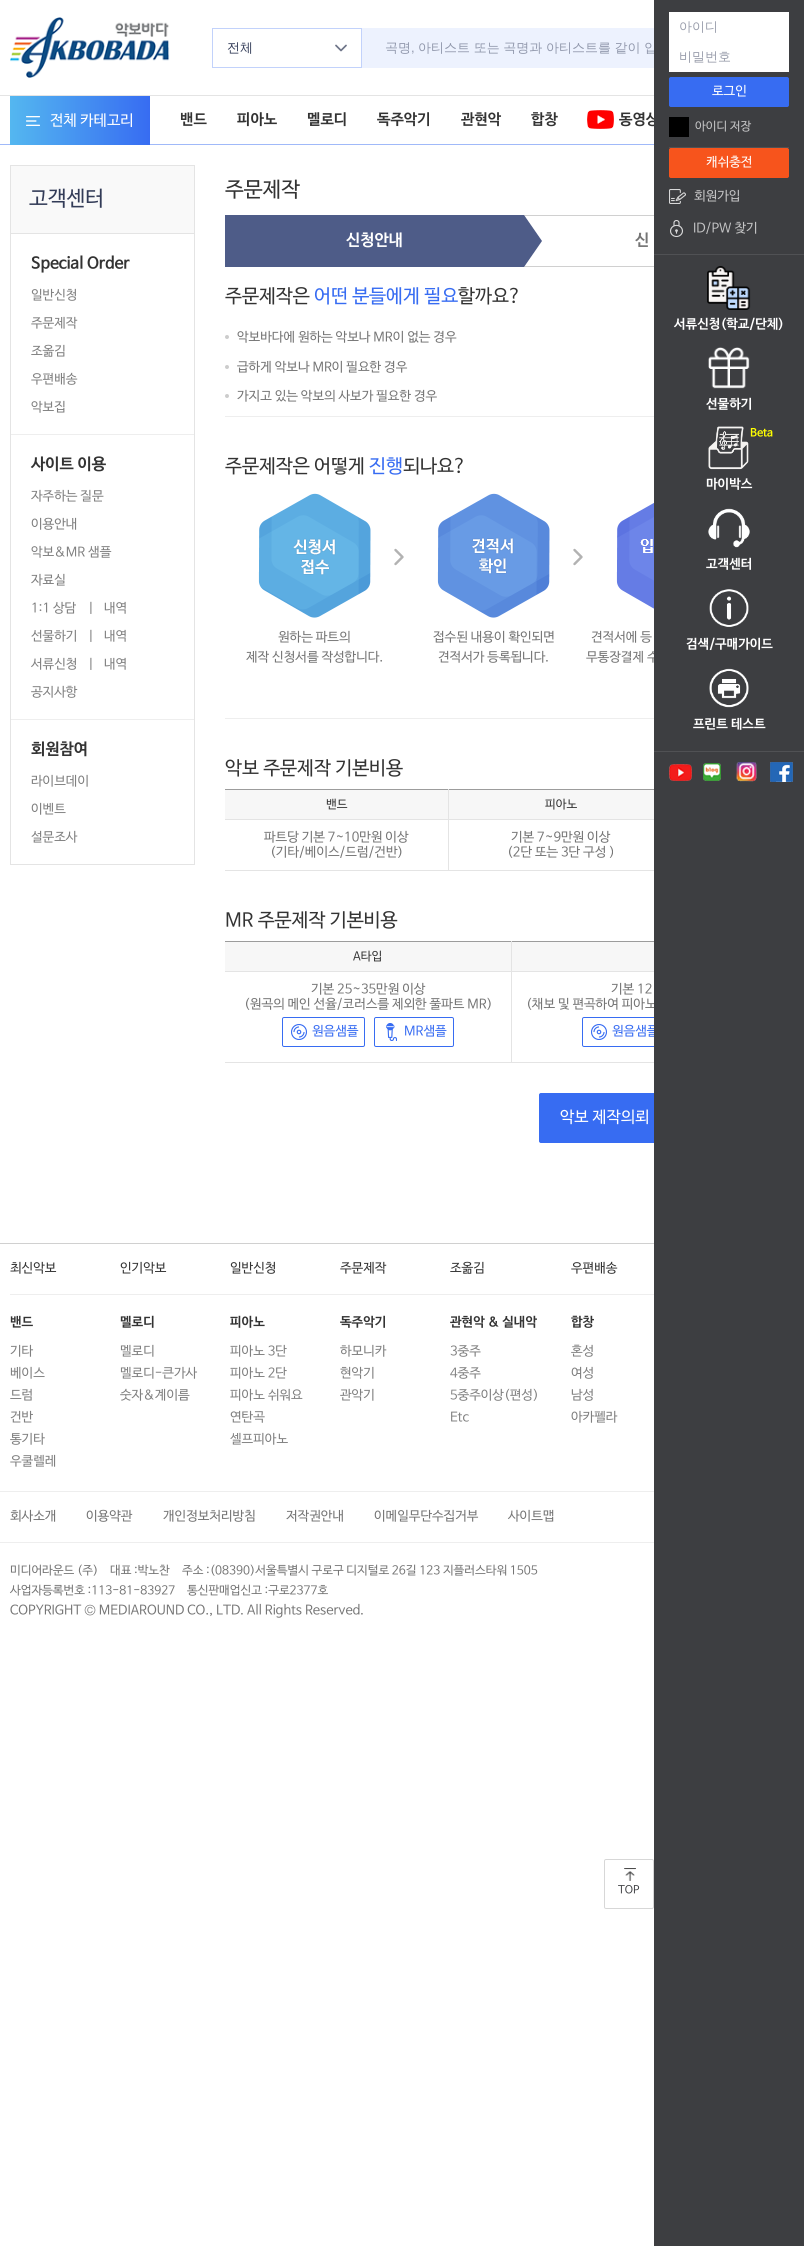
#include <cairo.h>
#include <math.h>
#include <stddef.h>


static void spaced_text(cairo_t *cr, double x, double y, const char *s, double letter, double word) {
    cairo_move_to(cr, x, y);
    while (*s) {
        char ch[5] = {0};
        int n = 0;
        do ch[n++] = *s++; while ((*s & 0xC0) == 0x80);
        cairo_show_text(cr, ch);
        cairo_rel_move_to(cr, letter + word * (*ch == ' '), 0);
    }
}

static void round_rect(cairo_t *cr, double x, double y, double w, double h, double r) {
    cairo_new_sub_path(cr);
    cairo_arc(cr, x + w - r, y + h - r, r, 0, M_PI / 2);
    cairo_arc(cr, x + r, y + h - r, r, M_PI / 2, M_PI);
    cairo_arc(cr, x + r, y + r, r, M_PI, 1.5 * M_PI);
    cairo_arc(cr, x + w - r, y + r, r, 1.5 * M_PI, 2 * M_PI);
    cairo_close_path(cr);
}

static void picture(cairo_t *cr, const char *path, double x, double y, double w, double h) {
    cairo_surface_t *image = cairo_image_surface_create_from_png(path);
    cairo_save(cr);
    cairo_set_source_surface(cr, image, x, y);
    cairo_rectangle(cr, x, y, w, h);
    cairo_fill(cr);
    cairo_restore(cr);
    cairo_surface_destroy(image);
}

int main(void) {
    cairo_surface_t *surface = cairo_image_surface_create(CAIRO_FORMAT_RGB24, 804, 2246);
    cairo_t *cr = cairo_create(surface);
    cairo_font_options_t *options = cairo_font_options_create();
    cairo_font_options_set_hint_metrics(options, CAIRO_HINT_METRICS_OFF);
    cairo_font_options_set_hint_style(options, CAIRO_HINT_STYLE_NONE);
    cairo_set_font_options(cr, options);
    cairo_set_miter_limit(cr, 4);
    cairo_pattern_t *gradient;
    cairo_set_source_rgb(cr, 1, 1, 1);
    cairo_paint(cr);
    cairo_set_source_rgb(cr, 0.627, 0.725, 0.976);
    cairo_rectangle(cr, 0, 144, 654, 1);
    cairo_fill(cr);
    picture(cr, "img1.png", 10, 17, 160, 61);
    cairo_set_source_rgb(cr, 0.929, 0.949, 0.996);
    cairo_rectangle(cr, 362, 28, 292, 40);
    cairo_fill(cr);
    cairo_rectangle(cr, 212.5, 28.5, 149, 39);
    cairo_set_source_rgb(cr, 0.761, 0.824, 0.984);
    cairo_set_line_width(cr, 1);
    cairo_stroke(cr);
    cairo_select_font_face(cr, "WenQuanYi Zen Hei Medium", CAIRO_FONT_SLANT_NORMAL, CAIRO_FONT_WEIGHT_NORMAL);
    cairo_set_font_size(cr, 13);
    cairo_set_source_rgb(cr, 0.196, 0.231, 0.341);
    cairo_move_to(cr, 227, 52);
    cairo_show_text(cr, "전체");
    picture(cr, "img2.png", 335, 44, 12, 8);
    cairo_set_source_rgb(cr, 0.565, 0.592, 0.671);
    cairo_move_to(cr, 385, 52);
    cairo_show_text(cr, "곡명");
    cairo_select_font_face(cr, "Liberation Sans", CAIRO_FONT_SLANT_NORMAL, CAIRO_FONT_WEIGHT_NORMAL);
    cairo_move_to(cr, 411, 52);
    cairo_show_text(cr, ",");
    cairo_select_font_face(cr, "WenQuanYi Zen Hei Medium", CAIRO_FONT_SLANT_NORMAL, CAIRO_FONT_WEIGHT_NORMAL);
    spaced_text(cr, 418, 52, "아티스트 또는 곡명과 아티스트를 같이 입", 0, -0.25);
    cairo_set_source_rgb(cr, 0.894, 0.894, 0.894);
    cairo_rectangle(cr, 0, 95, 654, 1);
    cairo_fill(cr);
    gradient = cairo_pattern_create_linear(10, 121, 150, 121);
    cairo_pattern_add_color_stop_rgba(gradient, 0, 0.329, 0.718, 0.941, 1);
    cairo_pattern_add_color_stop_rgba(gradient, 1, 0.216, 0.424, 0.949, 1);
    cairo_set_source(cr, gradient);
    cairo_pattern_destroy(gradient);
    cairo_rectangle(cr, 10, 96, 140, 49);
    cairo_fill(cr);
    picture(cr, "img3.png", 26, 116, 14, 10);
    cairo_select_font_face(cr, "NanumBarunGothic", CAIRO_FONT_SLANT_NORMAL, CAIRO_FONT_WEIGHT_NORMAL);
    cairo_set_font_size(cr, 15);
    cairo_set_source_rgb(cr, 1, 1, 1);
    cairo_move_to(cr, 50, 125);
    cairo_show_text(cr, "전체 카테고리");
    cairo_select_font_face(cr, "NanumBarunGothic", CAIRO_FONT_SLANT_NORMAL, CAIRO_FONT_WEIGHT_BOLD);
    cairo_set_source_rgb(cr, 0.2, 0.2, 0.2);
    cairo_move_to(cr, 180, 124);
    cairo_show_text(cr, "밴드");
    cairo_move_to(cr, 237, 124);
    cairo_show_text(cr, "피아노");
    cairo_move_to(cr, 307, 124);
    cairo_show_text(cr, "멜로디");
    cairo_move_to(cr, 377, 124);
    cairo_show_text(cr, "독주악기");
    cairo_move_to(cr, 461, 124);
    cairo_show_text(cr, "관현악");
    cairo_move_to(cr, 531, 124);
    cairo_show_text(cr, "합창");
    picture(cr, "img4.png", 587, 110, 27, 19);
    cairo_move_to(cr, 619, 124);
    cairo_show_text(cr, "동영상");
    cairo_select_font_face(cr, "NanumBarunGothic", CAIRO_FONT_SLANT_NORMAL, CAIRO_FONT_WEIGHT_NORMAL);
    cairo_set_font_size(cr, 13);
    cairo_set_source_rgb(cr, 0.459, 0.459, 0.459);
    cairo_move_to(cr, 586, 661);
    cairo_show_text(cr, "무통장결제 수");
    cairo_move_to(cr, 526, 1008);
    cairo_show_text(cr, "(채보 및 편곡하여 피아노");
    round_rect(cr, 582.5, 1017.5, 82, 29, 1.5);
    cairo_set_source_rgb(cr, 0.216, 0.424, 0.949);
    cairo_stroke(cr);
    cairo_move_to(cr, 612, 1035);
    cairo_show_text(cr, "원음샘플");
    round_rect(cr, 539.5, 1093.5, 130, 49, 1.5);
    cairo_fill_preserve(cr);
    cairo_stroke(cr);
    cairo_set_source_rgb(cr, 0.239, 0.243, 0.255);
    cairo_rectangle(cr, 654, 0, 150, 2246);
    cairo_fill(cr);
    cairo_set_source_rgb(cr, 1, 1, 1);
    cairo_rectangle(cr, 669, 12, 120, 60);
    cairo_fill(cr);
    cairo_select_font_face(cr, "WenQuanYi Zen Hei Medium", CAIRO_FONT_SLANT_NORMAL, CAIRO_FONT_WEIGHT_NORMAL);
    cairo_set_source_rgb(cr, 0.6, 0.616, 0.671);
    cairo_move_to(cr, 679, 31);
    cairo_show_text(cr, "아이디");
    cairo_move_to(cr, 679, 61);
    cairo_show_text(cr, "비밀번호");
    cairo_set_source_rgb(cr, 0.216, 0.424, 0.949);
    round_rect(cr, 669.5, 77.5, 119, 29, 1.5);
    cairo_fill_preserve(cr);
    cairo_stroke(cr);
    cairo_select_font_face(cr, "NanumBarunGothic", CAIRO_FONT_SLANT_NORMAL, CAIRO_FONT_WEIGHT_NORMAL);
    cairo_set_source_rgb(cr, 1, 1, 1);
    cairo_move_to(cr, 712, 95);
    cairo_show_text(cr, "로그인");
    cairo_set_source_rgb(cr, 0.314, 0.318, 0.329);
    cairo_rectangle(cr, 669, 147, 120, 1);
    cairo_fill(cr);
    cairo_set_source_rgb(cr, 0, 0, 0);
    cairo_rectangle(cr, 669, 117, 20, 20);
    cairo_fill(cr);
    cairo_set_font_size(cr, 12);
    cairo_set_source_rgb(cr, 0.773, 0.773, 0.776);
    cairo_move_to(cr, 695, 130);
    cairo_show_text(cr, "아이디 저장");
    cairo_set_source_rgb(cr, 0.965, 0.329, 0.11);
    round_rect(cr, 669.5, 148.5, 119, 29, 1.5);
    cairo_fill_preserve(cr);
    cairo_stroke(cr);
    cairo_set_font_size(cr, 13);
    cairo_set_source_rgb(cr, 1, 1, 1);
    cairo_move_to(cr, 706, 166);
    cairo_show_text(cr, "캐쉬충전");
    picture(cr, "img5.png", 669, 189, 17, 15);
    cairo_set_source_rgb(cr, 0.773, 0.773, 0.776);
    cairo_move_to(cr, 694, 200);
    cairo_show_text(cr, "회원가입");
    picture(cr, "img6.png", 670, 220, 13, 17);
    cairo_move_to(cr, 693, 232);
    cairo_show_text(cr, "ID/PW 찾기");
    cairo_set_source_rgb(cr, 0.314, 0.318, 0.329);
    cairo_rectangle(cr, 654, 254, 150, 1);
    cairo_fill(cr);
    cairo_rectangle(cr, 654, 751, 150, 1);
    cairo_fill(cr);
    picture(cr, "img7.png", 707, 266, 44, 44);
    cairo_select_font_face(cr, "NanumBarunGothic", CAIRO_FONT_SLANT_NORMAL, CAIRO_FONT_WEIGHT_BOLD);
    cairo_set_source_rgb(cr, 1, 1, 1);
    cairo_move_to(cr, 674, 328);
    cairo_show_text(cr, "서류신청(학교/단체)");
    picture(cr, "img8.png", 708, 347, 42, 42);
    cairo_move_to(cr, 706, 408);
    cairo_show_text(cr, "선물하기");
    picture(cr, "img9.png", 708, 426, 41, 44);
    cairo_set_font_size(cr, 11);
    cairo_set_source_rgb(cr, 1, 1, 0);
    cairo_move_to(cr, 750, 436);
    cairo_show_text(cr, "Beta");
    cairo_set_font_size(cr, 13);
    cairo_set_source_rgb(cr, 1, 1, 1);
    cairo_move_to(cr, 706, 488);
    cairo_show_text(cr, "마이박스");
    picture(cr, "img10.png", 708, 508, 42, 40);
    cairo_move_to(cr, 706, 568);
    cairo_show_text(cr, "고객센터");
    picture(cr, "img11.png", 709, 589, 40, 38);
    cairo_move_to(cr, 686, 648);
    cairo_show_text(cr, "검색/구매가이드");
    picture(cr, "img12.png", 709, 668, 40, 40);
    cairo_move_to(cr, 693, 728);
    cairo_show_text(cr, "프린트 테스트");
    picture(cr, "img13.png", 669, 764, 23, 17);
    picture(cr, "img14.png", 703, 763, 18, 18);
    picture(cr, "img15.png", 736, 762, 21, 20);
    picture(cr, "img16.png", 770, 762, 23, 20);
    round_rect(cr, 604.5, 1859.5, 49, 49, 1.5);
    cairo_set_source_rgb(cr, 0.843, 0.843, 0.843);
    cairo_stroke(cr);
    picture(cr, "img17.png", 624, 1868, 12, 13);
    cairo_select_font_face(cr, "NanumBarunGothic", CAIRO_FONT_SLANT_NORMAL, CAIRO_FONT_WEIGHT_NORMAL);
    cairo_set_font_size(cr, 11);
    cairo_set_source_rgb(cr, 0.239, 0.243, 0.255);
    cairo_move_to(cr, 618, 1893);
    cairo_show_text(cr, "TOP");
    cairo_rectangle(cr, 10.5, 165.5, 184, 699);
    cairo_set_source_rgb(cr, 0.894, 0.894, 0.894);
    cairo_stroke(cr);
    cairo_set_source_rgb(cr, 0.973, 0.973, 0.973);
    cairo_rectangle(cr, 11, 166, 183, 67);
    cairo_fill(cr);
    cairo_set_source_rgb(cr, 0.894, 0.894, 0.894);
    cairo_rectangle(cr, 11, 233, 183, 1);
    cairo_fill(cr);
    cairo_set_font_size(cr, 21);
    cairo_set_source_rgb(cr, 0.196, 0.231, 0.341);
    cairo_move_to(cr, 29, 205);
    cairo_show_text(cr, "고객센터");
    cairo_select_font_face(cr, "NanumBarunGothic", CAIRO_FONT_SLANT_NORMAL, CAIRO_FONT_WEIGHT_BOLD);
    cairo_set_font_size(cr, 16);
    cairo_set_source_rgb(cr, 0.2, 0.2, 0.2);
    cairo_move_to(cr, 31, 268);
    cairo_show_text(cr, "Special Order");
    cairo_select_font_face(cr, "NanumBarunGothic", CAIRO_FONT_SLANT_NORMAL, CAIRO_FONT_WEIGHT_NORMAL);
    cairo_set_font_size(cr, 13);
    cairo_set_source_rgb(cr, 0.502, 0.502, 0.502);
    cairo_move_to(cr, 31, 299);
    cairo_show_text(cr, "일반신청");
    cairo_move_to(cr, 31, 327);
    cairo_show_text(cr, "주문제작");
    cairo_move_to(cr, 31, 355);
    cairo_show_text(cr, "조옮김");
    cairo_move_to(cr, 31, 383);
    cairo_show_text(cr, "우편배송");
    cairo_move_to(cr, 31, 411);
    cairo_show_text(cr, "악보집");
    cairo_set_source_rgb(cr, 0.933, 0.933, 0.933);
    cairo_rectangle(cr, 11, 434, 183, 1);
    cairo_fill(cr);
    cairo_select_font_face(cr, "NanumBarunGothic", CAIRO_FONT_SLANT_NORMAL, CAIRO_FONT_WEIGHT_BOLD);
    cairo_set_font_size(cr, 16);
    cairo_set_source_rgb(cr, 0.2, 0.2, 0.2);
    cairo_move_to(cr, 31, 469);
    cairo_show_text(cr, "사이트 이용");
    cairo_select_font_face(cr, "NanumBarunGothic", CAIRO_FONT_SLANT_NORMAL, CAIRO_FONT_WEIGHT_NORMAL);
    cairo_set_font_size(cr, 13);
    cairo_set_source_rgb(cr, 0.502, 0.502, 0.502);
    cairo_move_to(cr, 31, 500);
    cairo_show_text(cr, "자주하는 질문");
    cairo_move_to(cr, 31, 528);
    cairo_show_text(cr, "이용안내");
    cairo_move_to(cr, 31, 556);
    cairo_show_text(cr, "악보&MR 샘플");
    cairo_move_to(cr, 31, 584);
    cairo_show_text(cr, "자료실");
    cairo_move_to(cr, 31, 612);
    cairo_show_text(cr, "1:1 상담");
    cairo_set_source_rgb(cr, 0.459, 0.459, 0.459);
    cairo_move_to(cr, 88, 612);
    cairo_show_text(cr, "|");
    cairo_set_source_rgb(cr, 0.502, 0.502, 0.502);
    cairo_move_to(cr, 104, 612);
    cairo_show_text(cr, "내역");
    cairo_move_to(cr, 31, 640);
    cairo_show_text(cr, "선물하기");
    cairo_set_source_rgb(cr, 0.459, 0.459, 0.459);
    cairo_move_to(cr, 88, 640);
    cairo_show_text(cr, "|");
    cairo_set_source_rgb(cr, 0.502, 0.502, 0.502);
    cairo_move_to(cr, 104, 640);
    cairo_show_text(cr, "내역");
    cairo_move_to(cr, 31, 668);
    cairo_show_text(cr, "서류신청");
    cairo_set_source_rgb(cr, 0.459, 0.459, 0.459);
    cairo_move_to(cr, 88, 668);
    cairo_show_text(cr, "|");
    cairo_set_source_rgb(cr, 0.502, 0.502, 0.502);
    cairo_move_to(cr, 104, 668);
    cairo_show_text(cr, "내역");
    cairo_move_to(cr, 31, 696);
    cairo_show_text(cr, "공지사항");
    cairo_set_source_rgb(cr, 0.933, 0.933, 0.933);
    cairo_rectangle(cr, 11, 719, 183, 1);
    cairo_fill(cr);
    cairo_select_font_face(cr, "NanumBarunGothic", CAIRO_FONT_SLANT_NORMAL, CAIRO_FONT_WEIGHT_BOLD);
    cairo_set_font_size(cr, 16);
    cairo_set_source_rgb(cr, 0.2, 0.2, 0.2);
    cairo_move_to(cr, 31, 754);
    cairo_show_text(cr, "회원참여");
    cairo_select_font_face(cr, "NanumBarunGothic", CAIRO_FONT_SLANT_NORMAL, CAIRO_FONT_WEIGHT_NORMAL);
    cairo_set_font_size(cr, 13);
    cairo_set_source_rgb(cr, 0.502, 0.502, 0.502);
    cairo_move_to(cr, 31, 785);
    cairo_show_text(cr, "라이브데이");
    cairo_move_to(cr, 31, 813);
    cairo_show_text(cr, "이벤트");
    cairo_move_to(cr, 31, 841);
    cairo_show_text(cr, "설문조사");
    cairo_set_font_size(cr, 21);
    cairo_set_source_rgb(cr, 0.2, 0.2, 0.2);
    cairo_move_to(cr, 225, 196);
    cairo_show_text(cr, "주문제작");
    cairo_set_source_rgb(cr, 0.306, 0.361, 0.533);
    cairo_rectangle(cr, 226, 216, 298, 50);
    cairo_fill(cr);
    cairo_rectangle(cr, 225, 215, 299, 1);
    cairo_fill(cr);
    cairo_rectangle(cr, 225, 266, 299, 1);
    cairo_fill(cr);
    cairo_rectangle(cr, 225, 215, 1, 52);
    cairo_fill(cr);
    cairo_set_source_rgb(cr, 0.816, 0.816, 0.816);
    cairo_rectangle(cr, 524, 215, 130, 1);
    cairo_fill(cr);
    cairo_rectangle(cr, 524, 266, 130, 1);
    cairo_fill(cr);
    cairo_set_source_rgb(cr, 0.306, 0.361, 0.533);
    cairo_new_path(cr);
    cairo_move_to(cr, 524, 267);
    cairo_line_to(cr, 524, 215);
    cairo_line_to(cr, 542, 241);
    cairo_close_path(cr);
    cairo_fill(cr);
    cairo_select_font_face(cr, "NanumBarunGothic", CAIRO_FONT_SLANT_NORMAL, CAIRO_FONT_WEIGHT_BOLD);
    cairo_set_font_size(cr, 16);
    cairo_set_source_rgb(cr, 1, 1, 1);
    cairo_move_to(cr, 346, 245);
    cairo_show_text(cr, "신청안내");
    cairo_set_source_rgb(cr, 0.306, 0.361, 0.533);
    cairo_new_path(cr);
    cairo_move_to(cr, 524, 266);
    cairo_line_to(cr, 524, 216);
    cairo_line_to(cr, 541, 241);
    cairo_close_path(cr);
    cairo_fill(cr);
    cairo_set_source_rgb(cr, 0.459, 0.459, 0.459);
    cairo_move_to(cr, 635, 245);
    cairo_show_text(cr, "신");
    cairo_select_font_face(cr, "NanumBarunGothic", CAIRO_FONT_SLANT_NORMAL, CAIRO_FONT_WEIGHT_NORMAL);
    cairo_set_font_size(cr, 19);
    cairo_set_source_rgb(cr, 0.2, 0.2, 0.2);
    cairo_move_to(cr, 225, 302);
    cairo_show_text(cr, "주문제작은");
    cairo_set_source_rgb(cr, 0.216, 0.424, 0.949);
    cairo_move_to(cr, 314, 302);
    cairo_show_text(cr, "어떤 분들에게 필요");
    cairo_set_source_rgb(cr, 0.2, 0.2, 0.2);
    cairo_move_to(cr, 458, 302);
    cairo_show_text(cr, "할까요?");
    cairo_set_source_rgb(cr, 0.933, 0.933, 0.933);
    cairo_rectangle(cr, 225, 416, 429, 1);
    cairo_fill(cr);
    cairo_set_source_rgb(cr, 0.8, 0.8, 0.8);
    cairo_arc(cr, 227, 337, 2, 0, 2 * M_PI);
    cairo_fill(cr);
    cairo_set_font_size(cr, 13);
    cairo_set_source_rgb(cr, 0.459, 0.459, 0.459);
    cairo_move_to(cr, 237, 341);
    cairo_show_text(cr, "악보바다에 원하는 악보나 MR이 없는 경우");
    cairo_set_source_rgb(cr, 0.8, 0.8, 0.8);
    cairo_new_path(cr);
    cairo_arc(cr, 227, 367, 2, 0, 2 * M_PI);
    cairo_fill(cr);
    cairo_set_source_rgb(cr, 0.459, 0.459, 0.459);
    cairo_move_to(cr, 237, 371);
    cairo_show_text(cr, "급하게 악보나 MR이 필요한 경우");
    cairo_set_source_rgb(cr, 0.8, 0.8, 0.8);
    cairo_new_path(cr);
    cairo_arc(cr, 227, 396, 2, 0, 2 * M_PI);
    cairo_fill(cr);
    cairo_set_source_rgb(cr, 0.459, 0.459, 0.459);
    cairo_move_to(cr, 237, 400);
    cairo_show_text(cr, "가지고 있는 악보의 사보가 필요한 경우");
    cairo_set_font_size(cr, 19);
    cairo_set_source_rgb(cr, 0.2, 0.2, 0.2);
    cairo_move_to(cr, 225, 472);
    cairo_show_text(cr, "주문제작은 어떻게");
    cairo_set_source_rgb(cr, 0.216, 0.424, 0.949);
    cairo_move_to(cr, 369, 472);
    cairo_show_text(cr, "진행");
    cairo_set_source_rgb(cr, 0.2, 0.2, 0.2);
    cairo_move_to(cr, 403, 472);
    cairo_show_text(cr, "되나요?");
    cairo_set_source_rgb(cr, 0.933, 0.933, 0.933);
    cairo_rectangle(cr, 225, 718, 429, 1);
    cairo_fill(cr);
    picture(cr, "img18.png", 258, 493, 113, 125);
    picture(cr, "img19.png", 394, 548, 10, 18);
    cairo_set_font_size(cr, 13);
    cairo_set_source_rgb(cr, 0.459, 0.459, 0.459);
    cairo_move_to(cr, 278, 641);
    cairo_show_text(cr, "원하는 파트의");
    cairo_move_to(cr, 246, 661);
    cairo_show_text(cr, "제작 신청서를 작성합니다.");
    picture(cr, "img20.png", 437, 493, 113, 125);
    picture(cr, "img19.png", 573, 548, 10, 18);
    cairo_move_to(cr, 433, 641);
    cairo_show_text(cr, "접수된 내용이 확인되면");
    cairo_move_to(cr, 438, 661);
    cairo_show_text(cr, "견적서가 등록됩니다.");
    picture(cr, "img21.png", 616, 503, 38, 106);
    cairo_move_to(cr, 591, 641);
    cairo_show_text(cr, "견적서에 등");
    cairo_set_font_size(cr, 19);
    cairo_set_source_rgb(cr, 0.2, 0.2, 0.2);
    cairo_move_to(cr, 225, 774);
    cairo_show_text(cr, "악보 주문제작 기본비용");
    cairo_set_source_rgb(cr, 0.612, 0.612, 0.612);
    cairo_rectangle(cr, 225, 789, 429, 1);
    cairo_fill(cr);
    cairo_set_source_rgb(cr, 0.965, 0.965, 0.965);
    cairo_rectangle(cr, 225, 790, 223, 29);
    cairo_fill(cr);
    cairo_set_source_rgb(cr, 0.894, 0.894, 0.894);
    cairo_rectangle(cr, 448, 870, 206, 1);
    cairo_fill(cr);
    cairo_rectangle(cr, 448, 819, 1, 52);
    cairo_fill(cr);
    cairo_rectangle(cr, 448, 819, 206, 1);
    cairo_fill(cr);
    cairo_rectangle(cr, 448, 789, 1, 31);
    cairo_fill(cr);
    cairo_rectangle(cr, 225, 819, 224, 1);
    cairo_fill(cr);
    cairo_set_font_size(cr, 12);
    cairo_set_source_rgb(cr, 0.2, 0.2, 0.2);
    cairo_move_to(cr, 326, 808);
    cairo_show_text(cr, "밴드");
    cairo_set_source_rgb(cr, 0.965, 0.965, 0.965);
    cairo_rectangle(cr, 449, 790, 205, 29);
    cairo_fill(cr);
    cairo_set_source_rgb(cr, 0.2, 0.2, 0.2);
    cairo_move_to(cr, 545, 808);
    cairo_show_text(cr, "피아노");
    cairo_set_source_rgb(cr, 0.894, 0.894, 0.894);
    cairo_rectangle(cr, 225, 870, 224, 1);
    cairo_fill(cr);
    cairo_set_font_size(cr, 13);
    cairo_set_source_rgb(cr, 0.459, 0.459, 0.459);
    cairo_move_to(cr, 264, 841);
    cairo_show_text(cr, "파트당 기본 7~10만원 이상");
    cairo_move_to(cr, 270, 856);
    cairo_show_text(cr, "(기타/베이스/드럼/건반)");
    cairo_move_to(cr, 511, 841);
    cairo_show_text(cr, "기본 7~9만원 이상");
    cairo_move_to(cr, 507, 856);
    cairo_show_text(cr, "(2단 또는 3단 구성 )");
    cairo_set_font_size(cr, 19);
    cairo_set_source_rgb(cr, 0.2, 0.2, 0.2);
    cairo_move_to(cr, 225, 926);
    cairo_show_text(cr, "MR 주문제작 기본비용");
    cairo_set_source_rgb(cr, 0.612, 0.612, 0.612);
    cairo_rectangle(cr, 225, 941, 429, 1);
    cairo_fill(cr);
    cairo_set_source_rgb(cr, 0.965, 0.965, 0.965);
    cairo_rectangle(cr, 225, 942, 286, 29);
    cairo_fill(cr);
    cairo_set_source_rgb(cr, 0.894, 0.894, 0.894);
    cairo_rectangle(cr, 511, 1062, 143, 1);
    cairo_fill(cr);
    cairo_rectangle(cr, 511, 971, 1, 92);
    cairo_fill(cr);
    cairo_rectangle(cr, 511, 971, 143, 1);
    cairo_fill(cr);
    cairo_rectangle(cr, 511, 941, 1, 31);
    cairo_fill(cr);
    cairo_rectangle(cr, 225, 971, 287, 1);
    cairo_fill(cr);
    cairo_set_font_size(cr, 12);
    cairo_set_source_rgb(cr, 0.2, 0.2, 0.2);
    cairo_move_to(cr, 353, 960);
    cairo_show_text(cr, "A타입");
    cairo_set_source_rgb(cr, 0.965, 0.965, 0.965);
    cairo_rectangle(cr, 512, 942, 142, 29);
    cairo_fill(cr);
    cairo_set_source_rgb(cr, 0.894, 0.894, 0.894);
    cairo_rectangle(cr, 225, 1062, 287, 1);
    cairo_fill(cr);
    cairo_set_font_size(cr, 13);
    cairo_set_source_rgb(cr, 0.459, 0.459, 0.459);
    cairo_move_to(cr, 311, 993);
    cairo_show_text(cr, "기본 25~35만원 이상");
    cairo_move_to(cr, 244, 1008);
    cairo_show_text(cr, "(원곡의 메인 선율/코러스를 제외한 풀파트 MR)");
    round_rect(cr, 282.5, 1017.5, 82, 29, 1.5);
    cairo_set_source_rgb(cr, 0.216, 0.424, 0.949);
    cairo_stroke(cr);
    picture(cr, "img22.png", 291, 1024, 16, 16);
    cairo_move_to(cr, 312, 1035);
    cairo_show_text(cr, "원음샘플");
    round_rect(cr, 374.5, 1017.5, 79, 29, 1.5);
    cairo_stroke(cr);
    picture(cr, "img23.png", 386, 1023, 11, 18);
    cairo_move_to(cr, 404, 1035);
    cairo_show_text(cr, "MR샘플");
    cairo_set_source_rgb(cr, 0.459, 0.459, 0.459);
    cairo_move_to(cr, 611, 993);
    cairo_show_text(cr, "기본 12");
    picture(cr, "img22.png", 591, 1024, 16, 16);
    cairo_set_font_size(cr, 16);
    cairo_set_source_rgb(cr, 1, 1, 1);
    cairo_move_to(cr, 560, 1122);
    cairo_show_text(cr, "악보 제작의뢰");
    cairo_set_source_rgb(cr, 0.816, 0.816, 0.816);
    cairo_rectangle(cr, 0, 1243, 654, 1);
    cairo_fill(cr);
    cairo_set_source_rgb(cr, 0.933, 0.933, 0.933);
    cairo_rectangle(cr, 10, 1294, 644, 1);
    cairo_fill(cr);
    cairo_set_font_size(cr, 13);
    cairo_set_source_rgb(cr, 0.2, 0.2, 0.2);
    cairo_move_to(cr, 10, 1272);
    cairo_show_text(cr, "최신악보");
    cairo_move_to(cr, 120, 1272);
    cairo_show_text(cr, "인기악보");
    cairo_move_to(cr, 230, 1272);
    cairo_show_text(cr, "일반신청");
    cairo_move_to(cr, 340, 1272);
    cairo_show_text(cr, "주문제작");
    cairo_move_to(cr, 450, 1272);
    cairo_show_text(cr, "조옮김");
    cairo_move_to(cr, 571, 1272);
    cairo_show_text(cr, "우편배송");
    cairo_select_font_face(cr, "NanumBarunGothic", CAIRO_FONT_SLANT_NORMAL, CAIRO_FONT_WEIGHT_BOLD);
    cairo_move_to(cr, 10, 1326);
    cairo_show_text(cr, "밴드");
    cairo_select_font_face(cr, "NanumBarunGothic", CAIRO_FONT_SLANT_NORMAL, CAIRO_FONT_WEIGHT_NORMAL);
    cairo_set_source_rgb(cr, 0.502, 0.502, 0.502);
    cairo_move_to(cr, 10, 1355);
    cairo_show_text(cr, "기타");
    cairo_move_to(cr, 10, 1377);
    cairo_show_text(cr, "베이스");
    cairo_move_to(cr, 10, 1399);
    cairo_show_text(cr, "드럼");
    cairo_move_to(cr, 10, 1421);
    cairo_show_text(cr, "건반");
    cairo_move_to(cr, 10, 1443);
    cairo_show_text(cr, "통기타");
    cairo_move_to(cr, 10, 1465);
    cairo_show_text(cr, "우쿨렐레");
    cairo_select_font_face(cr, "NanumBarunGothic", CAIRO_FONT_SLANT_NORMAL, CAIRO_FONT_WEIGHT_BOLD);
    cairo_set_source_rgb(cr, 0.2, 0.2, 0.2);
    cairo_move_to(cr, 120, 1326);
    cairo_show_text(cr, "멜로디");
    cairo_select_font_face(cr, "NanumBarunGothic", CAIRO_FONT_SLANT_NORMAL, CAIRO_FONT_WEIGHT_NORMAL);
    cairo_set_source_rgb(cr, 0.502, 0.502, 0.502);
    cairo_move_to(cr, 120, 1355);
    cairo_show_text(cr, "멜로디");
    cairo_move_to(cr, 120, 1377);
    cairo_show_text(cr, "멜로디-큰가사");
    cairo_move_to(cr, 120, 1399);
    cairo_show_text(cr, "숫자&계이름");
    cairo_select_font_face(cr, "NanumBarunGothic", CAIRO_FONT_SLANT_NORMAL, CAIRO_FONT_WEIGHT_BOLD);
    cairo_set_source_rgb(cr, 0.2, 0.2, 0.2);
    cairo_move_to(cr, 230, 1326);
    cairo_show_text(cr, "피아노");
    cairo_select_font_face(cr, "NanumBarunGothic", CAIRO_FONT_SLANT_NORMAL, CAIRO_FONT_WEIGHT_NORMAL);
    cairo_set_source_rgb(cr, 0.502, 0.502, 0.502);
    cairo_move_to(cr, 230, 1355);
    cairo_show_text(cr, "피아노 3단");
    cairo_move_to(cr, 230, 1377);
    cairo_show_text(cr, "피아노 2단");
    cairo_move_to(cr, 230, 1399);
    cairo_show_text(cr, "피아노 쉬워요");
    cairo_move_to(cr, 230, 1421);
    cairo_show_text(cr, "연탄곡");
    cairo_move_to(cr, 230, 1443);
    cairo_show_text(cr, "셀프피아노");
    cairo_select_font_face(cr, "NanumBarunGothic", CAIRO_FONT_SLANT_NORMAL, CAIRO_FONT_WEIGHT_BOLD);
    cairo_set_source_rgb(cr, 0.2, 0.2, 0.2);
    cairo_move_to(cr, 340, 1326);
    cairo_show_text(cr, "독주악기");
    cairo_select_font_face(cr, "NanumBarunGothic", CAIRO_FONT_SLANT_NORMAL, CAIRO_FONT_WEIGHT_NORMAL);
    cairo_set_source_rgb(cr, 0.502, 0.502, 0.502);
    cairo_move_to(cr, 340, 1355);
    cairo_show_text(cr, "하모니카");
    cairo_move_to(cr, 340, 1377);
    cairo_show_text(cr, "현악기");
    cairo_move_to(cr, 340, 1399);
    cairo_show_text(cr, "관악기");
    cairo_select_font_face(cr, "NanumBarunGothic", CAIRO_FONT_SLANT_NORMAL, CAIRO_FONT_WEIGHT_BOLD);
    cairo_set_source_rgb(cr, 0.2, 0.2, 0.2);
    cairo_move_to(cr, 450, 1326);
    cairo_show_text(cr, "관현악 & 실내악");
    cairo_select_font_face(cr, "NanumBarunGothic", CAIRO_FONT_SLANT_NORMAL, CAIRO_FONT_WEIGHT_NORMAL);
    cairo_set_source_rgb(cr, 0.502, 0.502, 0.502);
    cairo_move_to(cr, 450, 1355);
    cairo_show_text(cr, "3중주");
    cairo_move_to(cr, 450, 1377);
    cairo_show_text(cr, "4중주");
    cairo_move_to(cr, 450, 1399);
    cairo_show_text(cr, "5중주이상(편성)");
    cairo_move_to(cr, 450, 1421);
    cairo_show_text(cr, "Etc");
    cairo_select_font_face(cr, "NanumBarunGothic", CAIRO_FONT_SLANT_NORMAL, CAIRO_FONT_WEIGHT_BOLD);
    cairo_set_source_rgb(cr, 0.2, 0.2, 0.2);
    cairo_move_to(cr, 571, 1326);
    cairo_show_text(cr, "합창");
    cairo_select_font_face(cr, "NanumBarunGothic", CAIRO_FONT_SLANT_NORMAL, CAIRO_FONT_WEIGHT_NORMAL);
    cairo_set_source_rgb(cr, 0.502, 0.502, 0.502);
    cairo_move_to(cr, 571, 1355);
    cairo_show_text(cr, "혼성");
    cairo_move_to(cr, 571, 1377);
    cairo_show_text(cr, "여성");
    cairo_move_to(cr, 571, 1399);
    cairo_show_text(cr, "남성");
    cairo_move_to(cr, 571, 1421);
    cairo_show_text(cr, "아카펠라");
    cairo_set_source_rgb(cr, 0.933, 0.933, 0.933);
    cairo_rectangle(cr, 0, 1491, 654, 1);
    cairo_fill(cr);
    cairo_rectangle(cr, 0, 1542, 654, 1);
    cairo_fill(cr);
    cairo_set_source_rgb(cr, 0.459, 0.459, 0.459);
    cairo_move_to(cr, 10, 1520);
    cairo_show_text(cr, "회사소개");
    cairo_move_to(cr, 86, 1520);
    cairo_show_text(cr, "이용약관");
    cairo_move_to(cr, 163, 1520);
    cairo_show_text(cr, "개인정보처리방침");
    cairo_move_to(cr, 286, 1520);
    cairo_show_text(cr, "저작권안내");
    cairo_move_to(cr, 374, 1520);
    cairo_show_text(cr, "이메일무단수집거부");
    cairo_move_to(cr, 508, 1520);
    cairo_show_text(cr, "사이트맵");
    cairo_set_font_size(cr, 12);
    cairo_move_to(cr, 10, 1574);
    cairo_show_text(cr, "미디어라운드 (주)");
    cairo_move_to(cr, 110, 1574);
    cairo_show_text(cr, "대표 :박노찬");
    cairo_move_to(cr, 182, 1574);
    cairo_show_text(cr, "주소 :(08390)서울특별시 구로구 디지털로 26길 123 지플러스타워 1505");
    cairo_move_to(cr, 10, 1594);
    cairo_show_text(cr, "사업자등록번호 :113-81-83927");
    cairo_move_to(cr, 187, 1594);
    cairo_show_text(cr, "통신판매업신고 :구로2377호");
    cairo_set_font_size(cr, 13);
    cairo_move_to(cr, 10, 1614);
    cairo_show_text(cr, "COPYRIGHT © MEDIAROUND CO., LTD. All Rights Reserved.");
    cairo_surface_write_to_png(surface, "page.png");
    cairo_font_options_destroy(options);
    cairo_destroy(cr);
    cairo_surface_destroy(surface);
    return 0;
}
